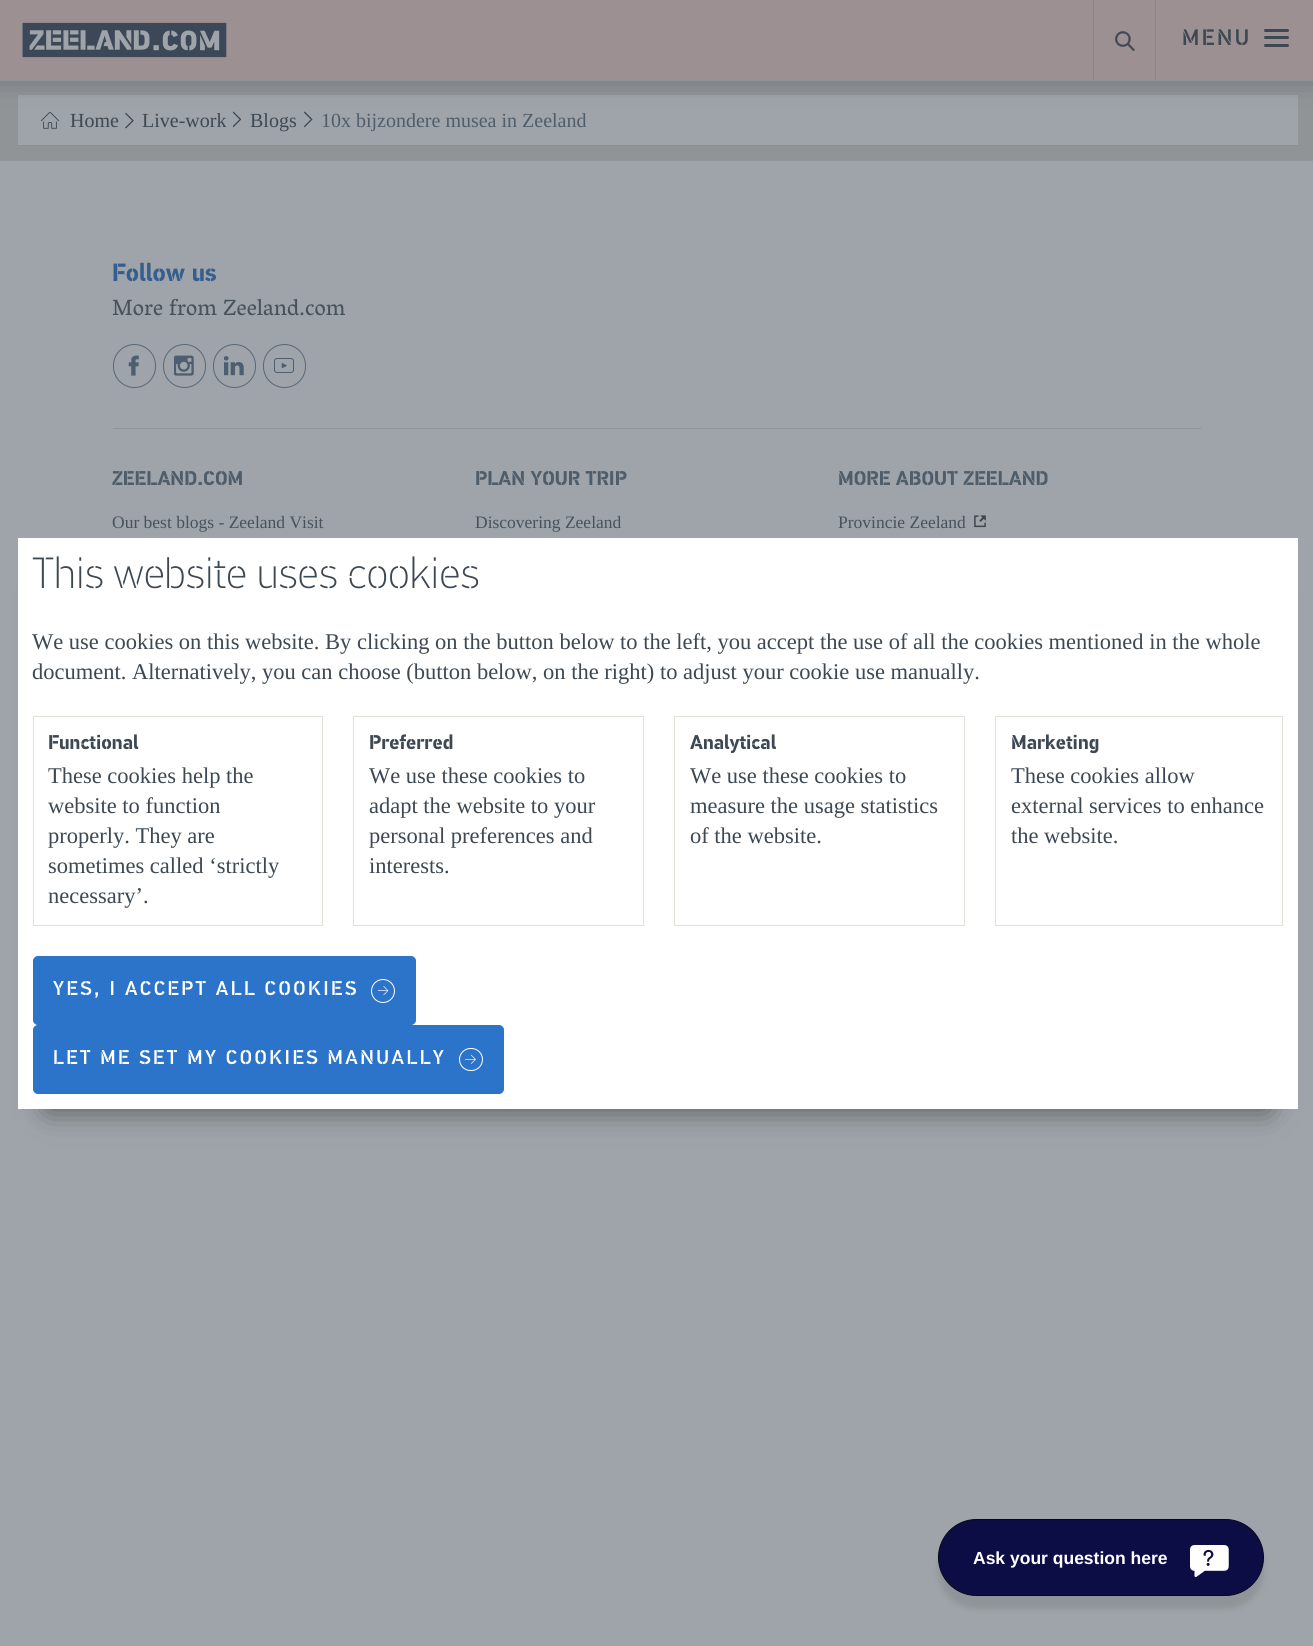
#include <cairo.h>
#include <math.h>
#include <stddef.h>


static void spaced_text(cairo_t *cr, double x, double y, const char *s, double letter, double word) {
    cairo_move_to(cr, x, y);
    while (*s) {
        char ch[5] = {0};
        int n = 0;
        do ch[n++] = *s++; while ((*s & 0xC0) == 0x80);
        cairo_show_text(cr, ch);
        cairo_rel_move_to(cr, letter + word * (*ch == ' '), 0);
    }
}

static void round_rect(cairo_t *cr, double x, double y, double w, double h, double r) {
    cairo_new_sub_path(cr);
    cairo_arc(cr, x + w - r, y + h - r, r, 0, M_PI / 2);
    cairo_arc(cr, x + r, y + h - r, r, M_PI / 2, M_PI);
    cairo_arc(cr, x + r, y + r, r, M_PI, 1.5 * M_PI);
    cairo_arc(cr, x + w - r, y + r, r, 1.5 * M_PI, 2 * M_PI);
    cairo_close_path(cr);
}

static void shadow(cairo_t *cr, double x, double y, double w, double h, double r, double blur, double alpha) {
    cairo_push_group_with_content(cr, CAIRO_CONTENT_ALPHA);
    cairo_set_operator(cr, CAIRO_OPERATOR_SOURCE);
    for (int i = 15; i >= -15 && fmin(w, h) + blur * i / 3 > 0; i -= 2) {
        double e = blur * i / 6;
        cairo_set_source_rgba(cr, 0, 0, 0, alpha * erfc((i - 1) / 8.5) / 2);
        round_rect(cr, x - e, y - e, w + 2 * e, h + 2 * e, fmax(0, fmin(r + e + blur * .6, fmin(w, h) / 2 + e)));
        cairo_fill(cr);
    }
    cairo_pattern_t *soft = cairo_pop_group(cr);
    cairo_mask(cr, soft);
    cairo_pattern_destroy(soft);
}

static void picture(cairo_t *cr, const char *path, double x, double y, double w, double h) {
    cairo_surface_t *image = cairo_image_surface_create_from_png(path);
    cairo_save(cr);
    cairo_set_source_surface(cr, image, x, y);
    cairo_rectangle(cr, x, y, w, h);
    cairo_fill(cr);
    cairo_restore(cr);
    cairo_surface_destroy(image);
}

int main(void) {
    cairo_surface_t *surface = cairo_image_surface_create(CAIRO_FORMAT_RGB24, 1313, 1646);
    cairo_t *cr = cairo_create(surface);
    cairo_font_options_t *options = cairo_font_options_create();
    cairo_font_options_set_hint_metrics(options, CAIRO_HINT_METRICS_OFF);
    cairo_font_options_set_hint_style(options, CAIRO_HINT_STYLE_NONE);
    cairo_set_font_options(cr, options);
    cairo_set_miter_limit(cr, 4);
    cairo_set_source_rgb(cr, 0.62, 0.643, 0.663);
    cairo_paint(cr);
    cairo_set_source_rgb(cr, 0.565, 0.58, 0.592);
    cairo_rectangle(cr, 0, 81, 1313, 80);
    cairo_fill(cr);
    cairo_set_source_rgb(cr, 0.62, 0.643, 0.663);
    cairo_rectangle(cr, 18, 95, 1280, 50);
    cairo_fill(cr);
    picture(cr, "img3.png", 40, 112, 20, 17);
    picture(cr, "img4.png", 125, 112, 9, 17);
    picture(cr, "img5.png", 233, 111, 8, 17);
    picture(cr, "img6.png", 304, 111, 9, 17);
    cairo_set_source_rgb(cr, 0.122, 0.141, 0.165);
    shadow(cr, -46, -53, 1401, 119, 0, 17.5, 0.75);
    cairo_set_source_rgb(cr, 0.557, 0.576, 0.6);
    cairo_rectangle(cr, 0, 80, 1313, 1);
    cairo_fill(cr);
    cairo_set_source_rgb(cr, 0.612, 0.565, 0.576);
    cairo_rectangle(cr, 0, 0, 1313, 80);
    cairo_fill(cr);
    picture(cr, "img1.png", 22, 22, 205, 36);
    cairo_set_source_rgb(cr, 0.506, 0.533, 0.565);
    cairo_rectangle(cr, 1093, 0, 1, 80);
    cairo_fill(cr);
    picture(cr, "img2.png", 1115, 31, 20, 20);
    cairo_rectangle(cr, 1155, 0, 1, 80);
    cairo_fill(cr);
    cairo_select_font_face(cr, "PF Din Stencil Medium", CAIRO_FONT_SLANT_NORMAL, CAIRO_FONT_WEIGHT_NORMAL);
    cairo_set_font_size(cr, 22.5);
    cairo_set_source_rgb(cr, 0.239, 0.282, 0.325);
    spaced_text(cr, 1182, 45, "MENU", 2.5, 0);
    round_rect(cr, 1264, 36, 25, 3, 1.5);
    cairo_fill(cr);
    round_rect(cr, 1264, 29, 25, 3, 1.5);
    cairo_fill(cr);
    round_rect(cr, 1264, 44, 25, 3, 1.5);
    cairo_fill(cr);
    cairo_set_source_rgb(cr, 0.533, 0.569, 0.6);
    cairo_rectangle(cr, 18, 145, 1280, 1);
    cairo_fill(cr);
    cairo_select_font_face(cr, "Liberation Serif", CAIRO_FONT_SLANT_NORMAL, CAIRO_FONT_WEIGHT_NORMAL);
    cairo_set_font_size(cr, 20);
    cairo_set_source_rgb(cr, 0.239, 0.282, 0.325);
    cairo_move_to(cr, 70, 127);
    cairo_show_text(cr, "Home");
    cairo_move_to(cr, 142, 127);
    cairo_show_text(cr, "Live-work");
    cairo_move_to(cr, 250, 127);
    cairo_show_text(cr, "Blogs");
    cairo_set_source_rgb(cr, 0.31, 0.365, 0.42);
    cairo_move_to(cr, 321, 127);
    cairo_show_text(cr, "10x bijzondere musea in Zeeland");
    cairo_select_font_face(cr, "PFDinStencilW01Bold", CAIRO_FONT_SLANT_NORMAL, CAIRO_FONT_WEIGHT_BOLD);
    cairo_set_font_size(cr, 25);
    cairo_set_source_rgb(cr, 0.208, 0.369, 0.557);
    cairo_move_to(cr, 112, 281);
    cairo_show_text(cr, "Follow us");
    cairo_select_font_face(cr, "Vesper Libre", CAIRO_FONT_SLANT_NORMAL, CAIRO_FONT_WEIGHT_NORMAL);
    cairo_set_font_size(cr, 22.5);
    cairo_set_source_rgb(cr, 0.278, 0.322, 0.361);
    cairo_move_to(cr, 112, 315);
    cairo_show_text(cr, "More from Zeeland.com");
    round_rect(cr, 113.5, 344.5, 42, 43, 21);
    cairo_set_source_rgb(cr, 0.345, 0.408, 0.467);
    cairo_set_line_width(cr, 1);
    cairo_stroke(cr);
    picture(cr, "img7.png", 128, 355, 11, 21);
    round_rect(cr, 163.5, 344.5, 42, 43, 21);
    cairo_stroke(cr);
    picture(cr, "img8.png", 174, 355, 20, 21);
    round_rect(cr, 213.5, 344.5, 42, 43, 21);
    cairo_stroke(cr);
    picture(cr, "img9.png", 224, 356, 20, 20);
    round_rect(cr, 263.5, 344.5, 42, 43, 21);
    cairo_stroke(cr);
    picture(cr, "img10.png", 274, 358, 20, 15);
    cairo_set_source_rgb(cr, 0.565, 0.58, 0.592);
    cairo_rectangle(cr, 113, 428, 1088, 1);
    cairo_fill(cr);
    cairo_select_font_face(cr, "PFDinStencilW01Bold", CAIRO_FONT_SLANT_NORMAL, CAIRO_FONT_WEIGHT_BOLD);
    cairo_set_font_size(cr, 20);
    cairo_set_source_rgb(cr, 0.31, 0.365, 0.42);
    cairo_move_to(cr, 112, 485);
    cairo_show_text(cr, "ZEELAND.COM");
    cairo_select_font_face(cr, "Liberation Serif", CAIRO_FONT_SLANT_NORMAL, CAIRO_FONT_WEIGHT_NORMAL);
    cairo_set_font_size(cr, 17.5);
    cairo_set_source_rgb(cr, 0.278, 0.322, 0.361);
    cairo_move_to(cr, 112, 528);
    cairo_show_text(cr, "Our best blogs - Zeeland Visit");
    cairo_select_font_face(cr, "PFDinStencilW01Bold", CAIRO_FONT_SLANT_NORMAL, CAIRO_FONT_WEIGHT_BOLD);
    cairo_set_font_size(cr, 20);
    cairo_set_source_rgb(cr, 0.31, 0.365, 0.42);
    cairo_move_to(cr, 475, 485);
    cairo_show_text(cr, "PLAN YOUR TRIP");
    cairo_select_font_face(cr, "Liberation Serif", CAIRO_FONT_SLANT_NORMAL, CAIRO_FONT_WEIGHT_NORMAL);
    cairo_set_font_size(cr, 17.5);
    cairo_set_source_rgb(cr, 0.278, 0.322, 0.361);
    cairo_move_to(cr, 475, 528);
    cairo_show_text(cr, "Discovering Zeeland");
    cairo_select_font_face(cr, "PFDinStencilW01Bold", CAIRO_FONT_SLANT_NORMAL, CAIRO_FONT_WEIGHT_BOLD);
    cairo_set_font_size(cr, 20);
    cairo_set_source_rgb(cr, 0.31, 0.365, 0.42);
    cairo_move_to(cr, 838, 485);
    cairo_show_text(cr, "MORE ABOUT ZEELAND");
    cairo_select_font_face(cr, "Liberation Serif", CAIRO_FONT_SLANT_NORMAL, CAIRO_FONT_WEIGHT_NORMAL);
    cairo_set_font_size(cr, 17.5);
    cairo_set_source_rgb(cr, 0.278, 0.322, 0.361);
    cairo_move_to(cr, 838, 528);
    cairo_show_text(cr, "Provincie Zeeland");
    picture(cr, "img11.png", 974, 515, 12, 13);
    cairo_set_source_rgb(cr, 0, 0, 0);
    shadow(cr, 48, 598, 1220, 511, 0, 15, 0.5);
    cairo_set_source_rgb(cr, 1, 1, 1);
    cairo_rectangle(cr, 18, 538, 1280, 571);
    cairo_fill(cr);
    cairo_select_font_face(cr, "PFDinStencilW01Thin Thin", CAIRO_FONT_SLANT_NORMAL, CAIRO_FONT_WEIGHT_NORMAL);
    cairo_set_font_size(cr, 43.75);
    cairo_set_source_rgb(cr, 0.239, 0.282, 0.325);
    cairo_move_to(cr, 32, 588);
    cairo_show_text(cr, "This website uses cookies");
    cairo_select_font_face(cr, "Liberation Serif", CAIRO_FONT_SLANT_NORMAL, CAIRO_FONT_WEIGHT_NORMAL);
    cairo_set_font_size(cr, 22.5);
    cairo_move_to(cr, 32, 649);
    cairo_show_text(cr, "We use cookies on this website. By clicking on the button below to the left, you accept the use of all the cookies mentioned in the whole");
    cairo_move_to(cr, 32, 679);
    cairo_show_text(cr, "document. Alternatively, you can choose (button below, on the right) to adjust your cookie use manually.");
    cairo_rectangle(cr, 33.5, 716.5, 289, 209);
    cairo_set_source_rgb(cr, 0.89, 0.878, 0.855);
    cairo_stroke(cr);
    cairo_select_font_face(cr, "PFDinStencilW01Bold", CAIRO_FONT_SLANT_NORMAL, CAIRO_FONT_WEIGHT_BOLD);
    cairo_set_font_size(cr, 20);
    cairo_set_source_rgb(cr, 0.239, 0.282, 0.325);
    cairo_move_to(cr, 48, 749);
    cairo_show_text(cr, "Functional");
    cairo_select_font_face(cr, "Liberation Serif", CAIRO_FONT_SLANT_NORMAL, CAIRO_FONT_WEIGHT_NORMAL);
    cairo_set_font_size(cr, 22.5);
    cairo_move_to(cr, 48, 783);
    cairo_show_text(cr, "These cookies help the");
    cairo_move_to(cr, 48, 813);
    cairo_show_text(cr, "website to function");
    cairo_move_to(cr, 48, 843);
    cairo_show_text(cr, "properly. They are");
    cairo_move_to(cr, 48, 873);
    cairo_show_text(cr, "sometimes called ‘strictly");
    cairo_move_to(cr, 48, 903);
    cairo_show_text(cr, "necessary’.");
    cairo_rectangle(cr, 353.5, 716.5, 290, 209);
    cairo_set_source_rgb(cr, 0.89, 0.878, 0.855);
    cairo_stroke(cr);
    cairo_select_font_face(cr, "PFDinStencilW01Bold", CAIRO_FONT_SLANT_NORMAL, CAIRO_FONT_WEIGHT_BOLD);
    cairo_set_font_size(cr, 20);
    cairo_set_source_rgb(cr, 0.239, 0.282, 0.325);
    cairo_move_to(cr, 369, 749);
    cairo_show_text(cr, "Preferred");
    cairo_select_font_face(cr, "Liberation Serif", CAIRO_FONT_SLANT_NORMAL, CAIRO_FONT_WEIGHT_NORMAL);
    cairo_set_font_size(cr, 22.5);
    cairo_move_to(cr, 369, 783);
    cairo_show_text(cr, "We use these cookies to");
    cairo_move_to(cr, 369, 813);
    cairo_show_text(cr, "adapt the website to your");
    cairo_move_to(cr, 369, 843);
    cairo_show_text(cr, "personal preferences and");
    cairo_move_to(cr, 369, 873);
    cairo_show_text(cr, "interests.");
    cairo_rectangle(cr, 674.5, 716.5, 290, 209);
    cairo_set_source_rgb(cr, 0.89, 0.878, 0.855);
    cairo_stroke(cr);
    cairo_select_font_face(cr, "PFDinStencilW01Bold", CAIRO_FONT_SLANT_NORMAL, CAIRO_FONT_WEIGHT_BOLD);
    cairo_set_font_size(cr, 20);
    cairo_set_source_rgb(cr, 0.239, 0.282, 0.325);
    cairo_move_to(cr, 690, 749);
    cairo_show_text(cr, "Analytical");
    cairo_select_font_face(cr, "Liberation Serif", CAIRO_FONT_SLANT_NORMAL, CAIRO_FONT_WEIGHT_NORMAL);
    cairo_set_font_size(cr, 22.5);
    cairo_move_to(cr, 690, 783);
    cairo_show_text(cr, "We use these cookies to");
    cairo_move_to(cr, 690, 813);
    cairo_show_text(cr, "measure the usage statistics");
    cairo_move_to(cr, 690, 843);
    cairo_show_text(cr, "of the website.");
    cairo_rectangle(cr, 995.5, 716.5, 287, 209);
    cairo_set_source_rgb(cr, 0.89, 0.878, 0.855);
    cairo_stroke(cr);
    cairo_select_font_face(cr, "PFDinStencilW01Bold", CAIRO_FONT_SLANT_NORMAL, CAIRO_FONT_WEIGHT_BOLD);
    cairo_set_font_size(cr, 20);
    cairo_set_source_rgb(cr, 0.239, 0.282, 0.325);
    cairo_move_to(cr, 1011, 749);
    cairo_show_text(cr, "Marketing");
    cairo_select_font_face(cr, "Liberation Serif", CAIRO_FONT_SLANT_NORMAL, CAIRO_FONT_WEIGHT_NORMAL);
    cairo_set_font_size(cr, 22.5);
    cairo_move_to(cr, 1011, 783);
    cairo_show_text(cr, "These cookies allow");
    cairo_move_to(cr, 1011, 813);
    cairo_show_text(cr, "external services to enhance");
    cairo_move_to(cr, 1011, 843);
    cairo_show_text(cr, "the website.");
    cairo_set_source_rgb(cr, 0.173, 0.455, 0.788);
    round_rect(cr, 33.5, 956.5, 382, 68, 4.5);
    cairo_fill_preserve(cr);
    cairo_stroke(cr);
    cairo_select_font_face(cr, "PF Din Stencil Medium", CAIRO_FONT_SLANT_NORMAL, CAIRO_FONT_WEIGHT_NORMAL);
    cairo_set_font_size(cr, 20);
    cairo_set_source_rgb(cr, 1, 1, 1);
    spaced_text(cr, 53, 995, "YES, I ACCEPT ALL COOKIES", 2.5, 0);
    cairo_new_path(cr);
    cairo_arc(cr, 383, 991, 11.5, 0, 2 * M_PI);
    cairo_stroke(cr);
    picture(cr, "img12.png", 378, 986, 11, 10);
    cairo_set_source_rgb(cr, 0.173, 0.455, 0.788);
    round_rect(cr, 33.5, 1025.5, 470, 68, 4.5);
    cairo_fill_preserve(cr);
    cairo_stroke(cr);
    cairo_set_source_rgb(cr, 1, 1, 1);
    spaced_text(cr, 53, 1064, "LET ME SET MY COOKIES MANUALLY", 2.5, 0);
    round_rect(cr, 459.5, 1048.5, 23, 22, 11);
    cairo_stroke(cr);
    picture(cr, "img13.png", 465, 1054, 11, 10);
    cairo_set_source_rgb(cr, 0, 0, 0);
    shadow(cr, 938, 1531, 326, 78, 39, 3, 0.1);
    cairo_set_source_rgb(cr, 0.051, 0.051, 0.275);
    round_rect(cr, 938.5, 1519.5, 325, 76, 38);
    cairo_fill_preserve(cr);
    cairo_set_source_rgb(cr, 0.02, 0.02, 0.102);
    cairo_stroke(cr);
    cairo_select_font_face(cr, "Liberation Sans", CAIRO_FONT_SLANT_NORMAL, CAIRO_FONT_WEIGHT_BOLD);
    cairo_set_font_size(cr, 17.5);
    cairo_set_source_rgb(cr, 1, 1, 1);
    cairo_move_to(cr, 973, 1564);
    cairo_show_text(cr, "Ask your question here");
    picture(cr, "img14.png", 1190, 1545, 39, 32);
    cairo_surface_write_to_png(surface, "page.png");
    cairo_font_options_destroy(options);
    cairo_destroy(cr);
    cairo_surface_destroy(surface);
    return 0;
}
